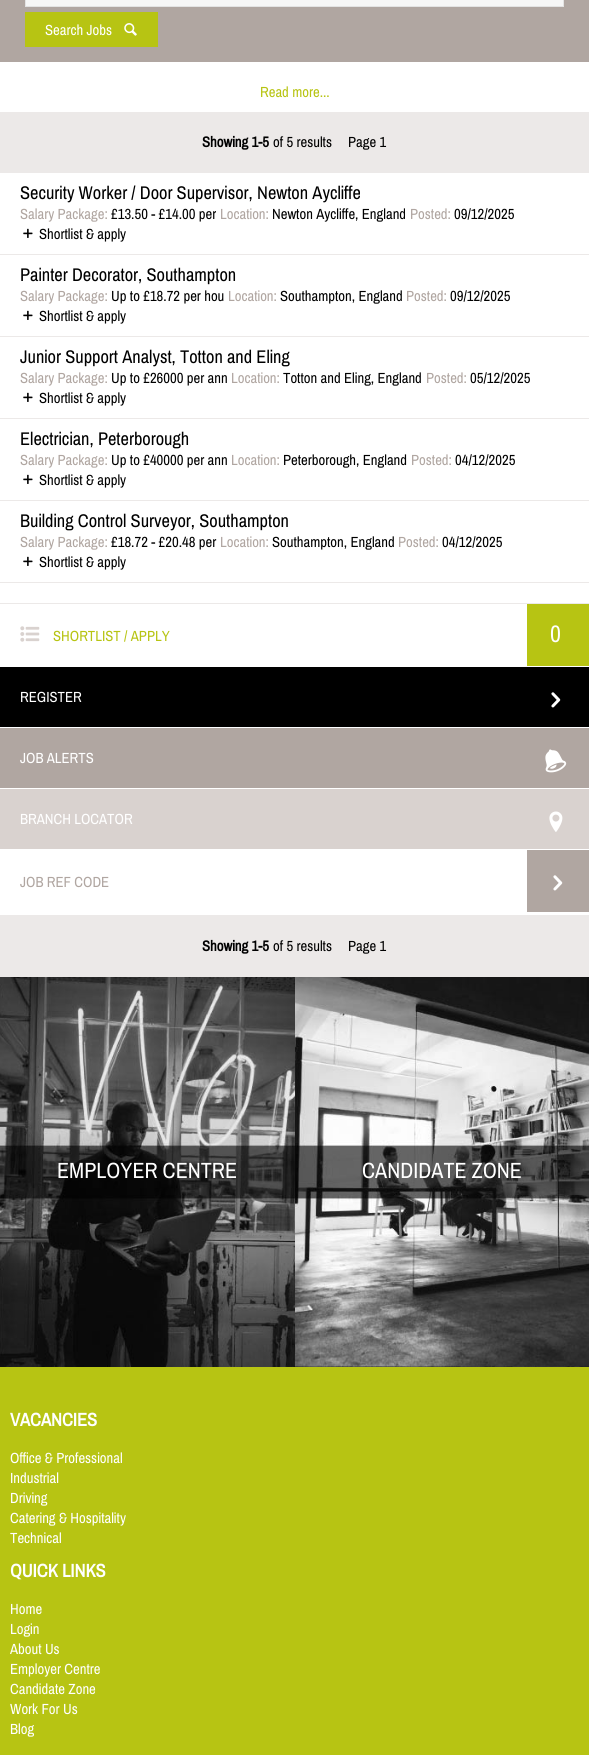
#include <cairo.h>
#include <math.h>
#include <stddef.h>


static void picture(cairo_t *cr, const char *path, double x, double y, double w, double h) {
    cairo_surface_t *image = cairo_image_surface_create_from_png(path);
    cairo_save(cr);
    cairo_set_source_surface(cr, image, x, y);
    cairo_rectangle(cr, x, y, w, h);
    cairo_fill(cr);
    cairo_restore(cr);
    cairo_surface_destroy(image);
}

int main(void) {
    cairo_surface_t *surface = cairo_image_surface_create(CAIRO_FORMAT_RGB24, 589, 1755);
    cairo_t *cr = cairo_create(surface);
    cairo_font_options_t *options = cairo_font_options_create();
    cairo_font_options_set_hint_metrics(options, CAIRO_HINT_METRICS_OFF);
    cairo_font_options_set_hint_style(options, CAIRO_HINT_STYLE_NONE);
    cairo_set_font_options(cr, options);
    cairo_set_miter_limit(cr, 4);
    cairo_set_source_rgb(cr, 0.69, 0.651, 0.631);
    cairo_paint(cr);
    cairo_set_source_rgb(cr, 0.961, 0.961, 0.961);
    cairo_rectangle(cr, 25.5, -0.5, 538, 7);
    cairo_fill_preserve(cr);
    cairo_set_source_rgb(cr, 0.89, 0.89, 0.89);
    cairo_set_line_width(cr, 1);
    cairo_stroke(cr);
    cairo_set_source_rgb(cr, 0.718, 0.769, 0.078);
    cairo_rectangle(cr, 25, 12, 133, 35);
    cairo_fill(cr);
    cairo_select_font_face(cr, "Pragati Narrow", CAIRO_FONT_SLANT_NORMAL, CAIRO_FONT_WEIGHT_NORMAL);
    cairo_set_font_size(cr, 16);
    cairo_set_source_rgb(cr, 1, 1, 1);
    cairo_move_to(cr, 45, 35);
    cairo_show_text(cr, "Search Jobs");
    picture(cr, "img1.png", 124, 23, 13, 13);
    cairo_rectangle(cr, 0, 62, 589, 50);
    cairo_fill(cr);
    cairo_set_source_rgb(cr, 0.718, 0.769, 0.078);
    cairo_move_to(cr, 260, 97);
    cairo_show_text(cr, "Read more...");
    cairo_set_source_rgb(cr, 0.925, 0.914, 0.91);
    cairo_rectangle(cr, 0, 112, 589, 61);
    cairo_fill(cr);
    cairo_select_font_face(cr, "Pragati Narrow", CAIRO_FONT_SLANT_NORMAL, CAIRO_FONT_WEIGHT_BOLD);
    cairo_set_source_rgb(cr, 0, 0, 0);
    cairo_move_to(cr, 202, 147);
    cairo_show_text(cr, "Showing 1-5");
    cairo_select_font_face(cr, "Pragati Narrow", CAIRO_FONT_SLANT_NORMAL, CAIRO_FONT_WEIGHT_NORMAL);
    cairo_move_to(cr, 273, 147);
    cairo_show_text(cr, "of 5 results");
    cairo_move_to(cr, 348, 147);
    cairo_show_text(cr, "Page 1");
    cairo_set_source_rgb(cr, 1, 1, 1);
    cairo_rectangle(cr, 0, 173, 589, 742);
    cairo_fill(cr);
    cairo_set_font_size(cr, 20);
    cairo_set_source_rgb(cr, 0, 0, 0);
    cairo_move_to(cr, 20, 199);
    cairo_show_text(cr, "Security Worker / Door Supervisor, Newton Aycliffe");
    cairo_set_font_size(cr, 16);
    cairo_set_source_rgb(cr, 0.69, 0.651, 0.631);
    cairo_move_to(cr, 20, 219);
    cairo_show_text(cr, "Salary Package:");
    cairo_set_source_rgb(cr, 0, 0, 0);
    cairo_move_to(cr, 111, 219);
    cairo_show_text(cr, "£13.50 - £14.00 per");
    cairo_set_source_rgb(cr, 0.69, 0.651, 0.631);
    cairo_move_to(cr, 220, 219);
    cairo_show_text(cr, "Location:");
    cairo_set_source_rgb(cr, 0, 0, 0);
    cairo_move_to(cr, 272, 219);
    cairo_show_text(cr, "Newton Aycliffe, England");
    cairo_set_source_rgb(cr, 0.69, 0.651, 0.631);
    cairo_move_to(cr, 410, 219);
    cairo_show_text(cr, "Posted:");
    cairo_set_source_rgb(cr, 0, 0, 0);
    cairo_move_to(cr, 454, 219);
    cairo_show_text(cr, "09/12/2025");
    picture(cr, "img2.png", 23, 228, 10, 10);
    cairo_move_to(cr, 39, 239);
    cairo_show_text(cr, "Shortlist & apply");
    cairo_set_source_rgb(cr, 0.925, 0.914, 0.91);
    cairo_rectangle(cr, 0, 254, 589, 1);
    cairo_fill(cr);
    cairo_set_font_size(cr, 20);
    cairo_set_source_rgb(cr, 0, 0, 0);
    cairo_move_to(cr, 20, 281);
    cairo_show_text(cr, "Painter Decorator, Southampton");
    cairo_set_font_size(cr, 16);
    cairo_set_source_rgb(cr, 0.69, 0.651, 0.631);
    cairo_move_to(cr, 20, 301);
    cairo_show_text(cr, "Salary Package:");
    cairo_set_source_rgb(cr, 0, 0, 0);
    cairo_move_to(cr, 111, 301);
    cairo_show_text(cr, "Up to £18.72 per hou");
    cairo_set_source_rgb(cr, 0.69, 0.651, 0.631);
    cairo_move_to(cr, 228, 301);
    cairo_show_text(cr, "Location:");
    cairo_set_source_rgb(cr, 0, 0, 0);
    cairo_move_to(cr, 280, 301);
    cairo_show_text(cr, "Southampton, England");
    cairo_set_source_rgb(cr, 0.69, 0.651, 0.631);
    cairo_move_to(cr, 406, 301);
    cairo_show_text(cr, "Posted:");
    cairo_set_source_rgb(cr, 0, 0, 0);
    cairo_move_to(cr, 450, 301);
    cairo_show_text(cr, "09/12/2025");
    picture(cr, "img2.png", 23, 310, 10, 10);
    cairo_move_to(cr, 39, 321);
    cairo_show_text(cr, "Shortlist & apply");
    cairo_set_source_rgb(cr, 0.925, 0.914, 0.91);
    cairo_rectangle(cr, 0, 336, 589, 1);
    cairo_fill(cr);
    cairo_set_font_size(cr, 20);
    cairo_set_source_rgb(cr, 0, 0, 0);
    cairo_move_to(cr, 20, 363);
    cairo_show_text(cr, "Junior Support Analyst, Totton and Eling");
    cairo_set_font_size(cr, 16);
    cairo_set_source_rgb(cr, 0.69, 0.651, 0.631);
    cairo_move_to(cr, 20, 383);
    cairo_show_text(cr, "Salary Package:");
    cairo_set_source_rgb(cr, 0, 0, 0);
    cairo_move_to(cr, 111, 383);
    cairo_show_text(cr, "Up to £26000 per ann");
    cairo_set_source_rgb(cr, 0.69, 0.651, 0.631);
    cairo_move_to(cr, 231, 383);
    cairo_show_text(cr, "Location:");
    cairo_set_source_rgb(cr, 0, 0, 0);
    cairo_move_to(cr, 283, 383);
    cairo_show_text(cr, "Totton and Eling, England");
    cairo_set_source_rgb(cr, 0.69, 0.651, 0.631);
    cairo_move_to(cr, 426, 383);
    cairo_show_text(cr, "Posted:");
    cairo_set_source_rgb(cr, 0, 0, 0);
    cairo_move_to(cr, 470, 383);
    cairo_show_text(cr, "05/12/2025");
    picture(cr, "img2.png", 23, 392, 10, 10);
    cairo_move_to(cr, 39, 403);
    cairo_show_text(cr, "Shortlist & apply");
    cairo_set_source_rgb(cr, 0.925, 0.914, 0.91);
    cairo_rectangle(cr, 0, 418, 589, 1);
    cairo_fill(cr);
    cairo_set_font_size(cr, 20);
    cairo_set_source_rgb(cr, 0, 0, 0);
    cairo_move_to(cr, 20, 445);
    cairo_show_text(cr, "Electrician, Peterborough");
    cairo_set_font_size(cr, 16);
    cairo_set_source_rgb(cr, 0.69, 0.651, 0.631);
    cairo_move_to(cr, 20, 465);
    cairo_show_text(cr, "Salary Package:");
    cairo_set_source_rgb(cr, 0, 0, 0);
    cairo_move_to(cr, 111, 465);
    cairo_show_text(cr, "Up to £40000 per ann");
    cairo_set_source_rgb(cr, 0.69, 0.651, 0.631);
    cairo_move_to(cr, 231, 465);
    cairo_show_text(cr, "Location:");
    cairo_set_source_rgb(cr, 0, 0, 0);
    cairo_move_to(cr, 283, 465);
    cairo_show_text(cr, "Peterborough, England");
    cairo_set_source_rgb(cr, 0.69, 0.651, 0.631);
    cairo_move_to(cr, 411, 465);
    cairo_show_text(cr, "Posted:");
    cairo_set_source_rgb(cr, 0, 0, 0);
    cairo_move_to(cr, 455, 465);
    cairo_show_text(cr, "04/12/2025");
    picture(cr, "img2.png", 23, 474, 10, 10);
    cairo_move_to(cr, 39, 485);
    cairo_show_text(cr, "Shortlist & apply");
    cairo_set_source_rgb(cr, 0.925, 0.914, 0.91);
    cairo_rectangle(cr, 0, 500, 589, 1);
    cairo_fill(cr);
    cairo_set_font_size(cr, 20);
    cairo_set_source_rgb(cr, 0, 0, 0);
    cairo_move_to(cr, 20, 527);
    cairo_show_text(cr, "Building Control Surveyor, Southampton");
    cairo_set_font_size(cr, 16);
    cairo_set_source_rgb(cr, 0.69, 0.651, 0.631);
    cairo_move_to(cr, 20, 547);
    cairo_show_text(cr, "Salary Package:");
    cairo_set_source_rgb(cr, 0, 0, 0);
    cairo_move_to(cr, 111, 547);
    cairo_show_text(cr, "£18.72 - £20.48 per");
    cairo_set_source_rgb(cr, 0.69, 0.651, 0.631);
    cairo_move_to(cr, 220, 547);
    cairo_show_text(cr, "Location:");
    cairo_set_source_rgb(cr, 0, 0, 0);
    cairo_move_to(cr, 272, 547);
    cairo_show_text(cr, "Southampton, England");
    cairo_set_source_rgb(cr, 0.69, 0.651, 0.631);
    cairo_move_to(cr, 398, 547);
    cairo_show_text(cr, "Posted:");
    cairo_set_source_rgb(cr, 0, 0, 0);
    cairo_move_to(cr, 442, 547);
    cairo_show_text(cr, "04/12/2025");
    picture(cr, "img2.png", 23, 556, 10, 10);
    cairo_move_to(cr, 39, 567);
    cairo_show_text(cr, "Shortlist & apply");
    cairo_set_source_rgb(cr, 0.925, 0.914, 0.91);
    cairo_rectangle(cr, 0, 582, 589, 1);
    cairo_fill(cr);
    cairo_rectangle(cr, 0, 603, 589, 1);
    cairo_fill(cr);
    picture(cr, "img3.png", 20, 626, 20, 16);
    cairo_set_source_rgb(cr, 0.718, 0.769, 0.078);
    cairo_move_to(cr, 53, 641);
    cairo_show_text(cr, "SHORTLIST / APPLY");
    cairo_rectangle(cr, 527, 604, 62, 62);
    cairo_fill(cr);
    cairo_set_font_size(cr, 26);
    cairo_set_source_rgb(cr, 1, 1, 1);
    cairo_move_to(cr, 550, 642);
    cairo_show_text(cr, "0");
    cairo_set_source_rgb(cr, 0, 0, 0);
    cairo_rectangle(cr, 0, 667, 589, 60);
    cairo_fill(cr);
    cairo_set_font_size(cr, 16);
    cairo_set_source_rgb(cr, 1, 1, 1);
    cairo_move_to(cr, 20, 702);
    cairo_show_text(cr, "REGISTER");
    picture(cr, "img4.png", 551, 692, 10, 16);
    cairo_set_source_rgb(cr, 0.69, 0.651, 0.631);
    cairo_rectangle(cr, 0, 728, 589, 60);
    cairo_fill(cr);
    cairo_set_source_rgb(cr, 1, 1, 1);
    cairo_move_to(cr, 20, 763);
    cairo_show_text(cr, "JOB ALERTS");
    picture(cr, "img5.png", 545, 749, 22, 24);
    cairo_set_source_rgb(cr, 0.851, 0.824, 0.812);
    cairo_rectangle(cr, 0, 789, 589, 60);
    cairo_fill(cr);
    cairo_set_source_rgb(cr, 1, 1, 1);
    cairo_move_to(cr, 20, 824);
    cairo_show_text(cr, "BRANCH LOCATOR");
    picture(cr, "img6.png", 549, 811, 14, 21);
    cairo_set_source_rgb(cr, 0.69, 0.651, 0.631);
    cairo_move_to(cr, 20, 887);
    cairo_show_text(cr, "JOB REF CODE");
    cairo_rectangle(cr, 527, 850, 62, 62);
    cairo_fill(cr);
    picture(cr, "img7.png", 553, 875, 10, 16);
    cairo_set_source_rgb(cr, 0.925, 0.914, 0.91);
    cairo_rectangle(cr, 0, 915, 589, 62);
    cairo_fill(cr);
    cairo_select_font_face(cr, "Pragati Narrow", CAIRO_FONT_SLANT_NORMAL, CAIRO_FONT_WEIGHT_BOLD);
    cairo_set_source_rgb(cr, 0, 0, 0);
    cairo_move_to(cr, 202, 951);
    cairo_show_text(cr, "Showing 1-5");
    cairo_select_font_face(cr, "Pragati Narrow", CAIRO_FONT_SLANT_NORMAL, CAIRO_FONT_WEIGHT_NORMAL);
    cairo_move_to(cr, 273, 951);
    cairo_show_text(cr, "of 5 results");
    cairo_move_to(cr, 348, 951);
    cairo_show_text(cr, "Page 1");
    picture(cr, "img8.png", 0, 977, 295, 390);
    cairo_set_font_size(cr, 24);
    cairo_set_source_rgb(cr, 1, 1, 1);
    cairo_move_to(cr, 57, 1178);
    cairo_show_text(cr, "EMPLOYER CENTRE");
    picture(cr, "img9.png", 295, 977, 294, 390);
    cairo_move_to(cr, 362, 1178);
    cairo_show_text(cr, "CANDIDATE ZONE");
    cairo_set_source_rgb(cr, 0.718, 0.769, 0.078);
    cairo_rectangle(cr, 0, 1367, 589, 388);
    cairo_fill(cr);
    cairo_select_font_face(cr, "Pragati Narrow", CAIRO_FONT_SLANT_NORMAL, CAIRO_FONT_WEIGHT_BOLD);
    cairo_set_font_size(cr, 20);
    cairo_set_source_rgb(cr, 1, 1, 1);
    cairo_move_to(cr, 10, 1426);
    cairo_show_text(cr, "VACANCIES");
    cairo_select_font_face(cr, "Pragati Narrow", CAIRO_FONT_SLANT_NORMAL, CAIRO_FONT_WEIGHT_NORMAL);
    cairo_set_font_size(cr, 16);
    cairo_move_to(cr, 10, 1463);
    cairo_show_text(cr, "Office & Professional");
    cairo_move_to(cr, 10, 1483);
    cairo_show_text(cr, "Industrial");
    cairo_move_to(cr, 10, 1503);
    cairo_show_text(cr, "Driving");
    cairo_move_to(cr, 10, 1523);
    cairo_show_text(cr, "Catering & Hospitality");
    cairo_move_to(cr, 10, 1543);
    cairo_show_text(cr, "Technical");
    cairo_select_font_face(cr, "Pragati Narrow", CAIRO_FONT_SLANT_NORMAL, CAIRO_FONT_WEIGHT_BOLD);
    cairo_set_font_size(cr, 20);
    cairo_move_to(cr, 10, 1577);
    cairo_show_text(cr, "QUICK LINKS");
    cairo_select_font_face(cr, "Pragati Narrow", CAIRO_FONT_SLANT_NORMAL, CAIRO_FONT_WEIGHT_NORMAL);
    cairo_set_font_size(cr, 16);
    cairo_move_to(cr, 10, 1614);
    cairo_show_text(cr, "Home");
    cairo_move_to(cr, 10, 1634);
    cairo_show_text(cr, "Login");
    cairo_move_to(cr, 10, 1654);
    cairo_show_text(cr, "About Us");
    cairo_move_to(cr, 10, 1674);
    cairo_show_text(cr, "Employer Centre");
    cairo_move_to(cr, 10, 1694);
    cairo_show_text(cr, "Candidate Zone");
    cairo_move_to(cr, 10, 1714);
    cairo_show_text(cr, "Work For Us");
    cairo_move_to(cr, 10, 1734);
    cairo_show_text(cr, "Blog");
    cairo_surface_write_to_png(surface, "page.png");
    cairo_font_options_destroy(options);
    cairo_destroy(cr);
    cairo_surface_destroy(surface);
    return 0;
}
